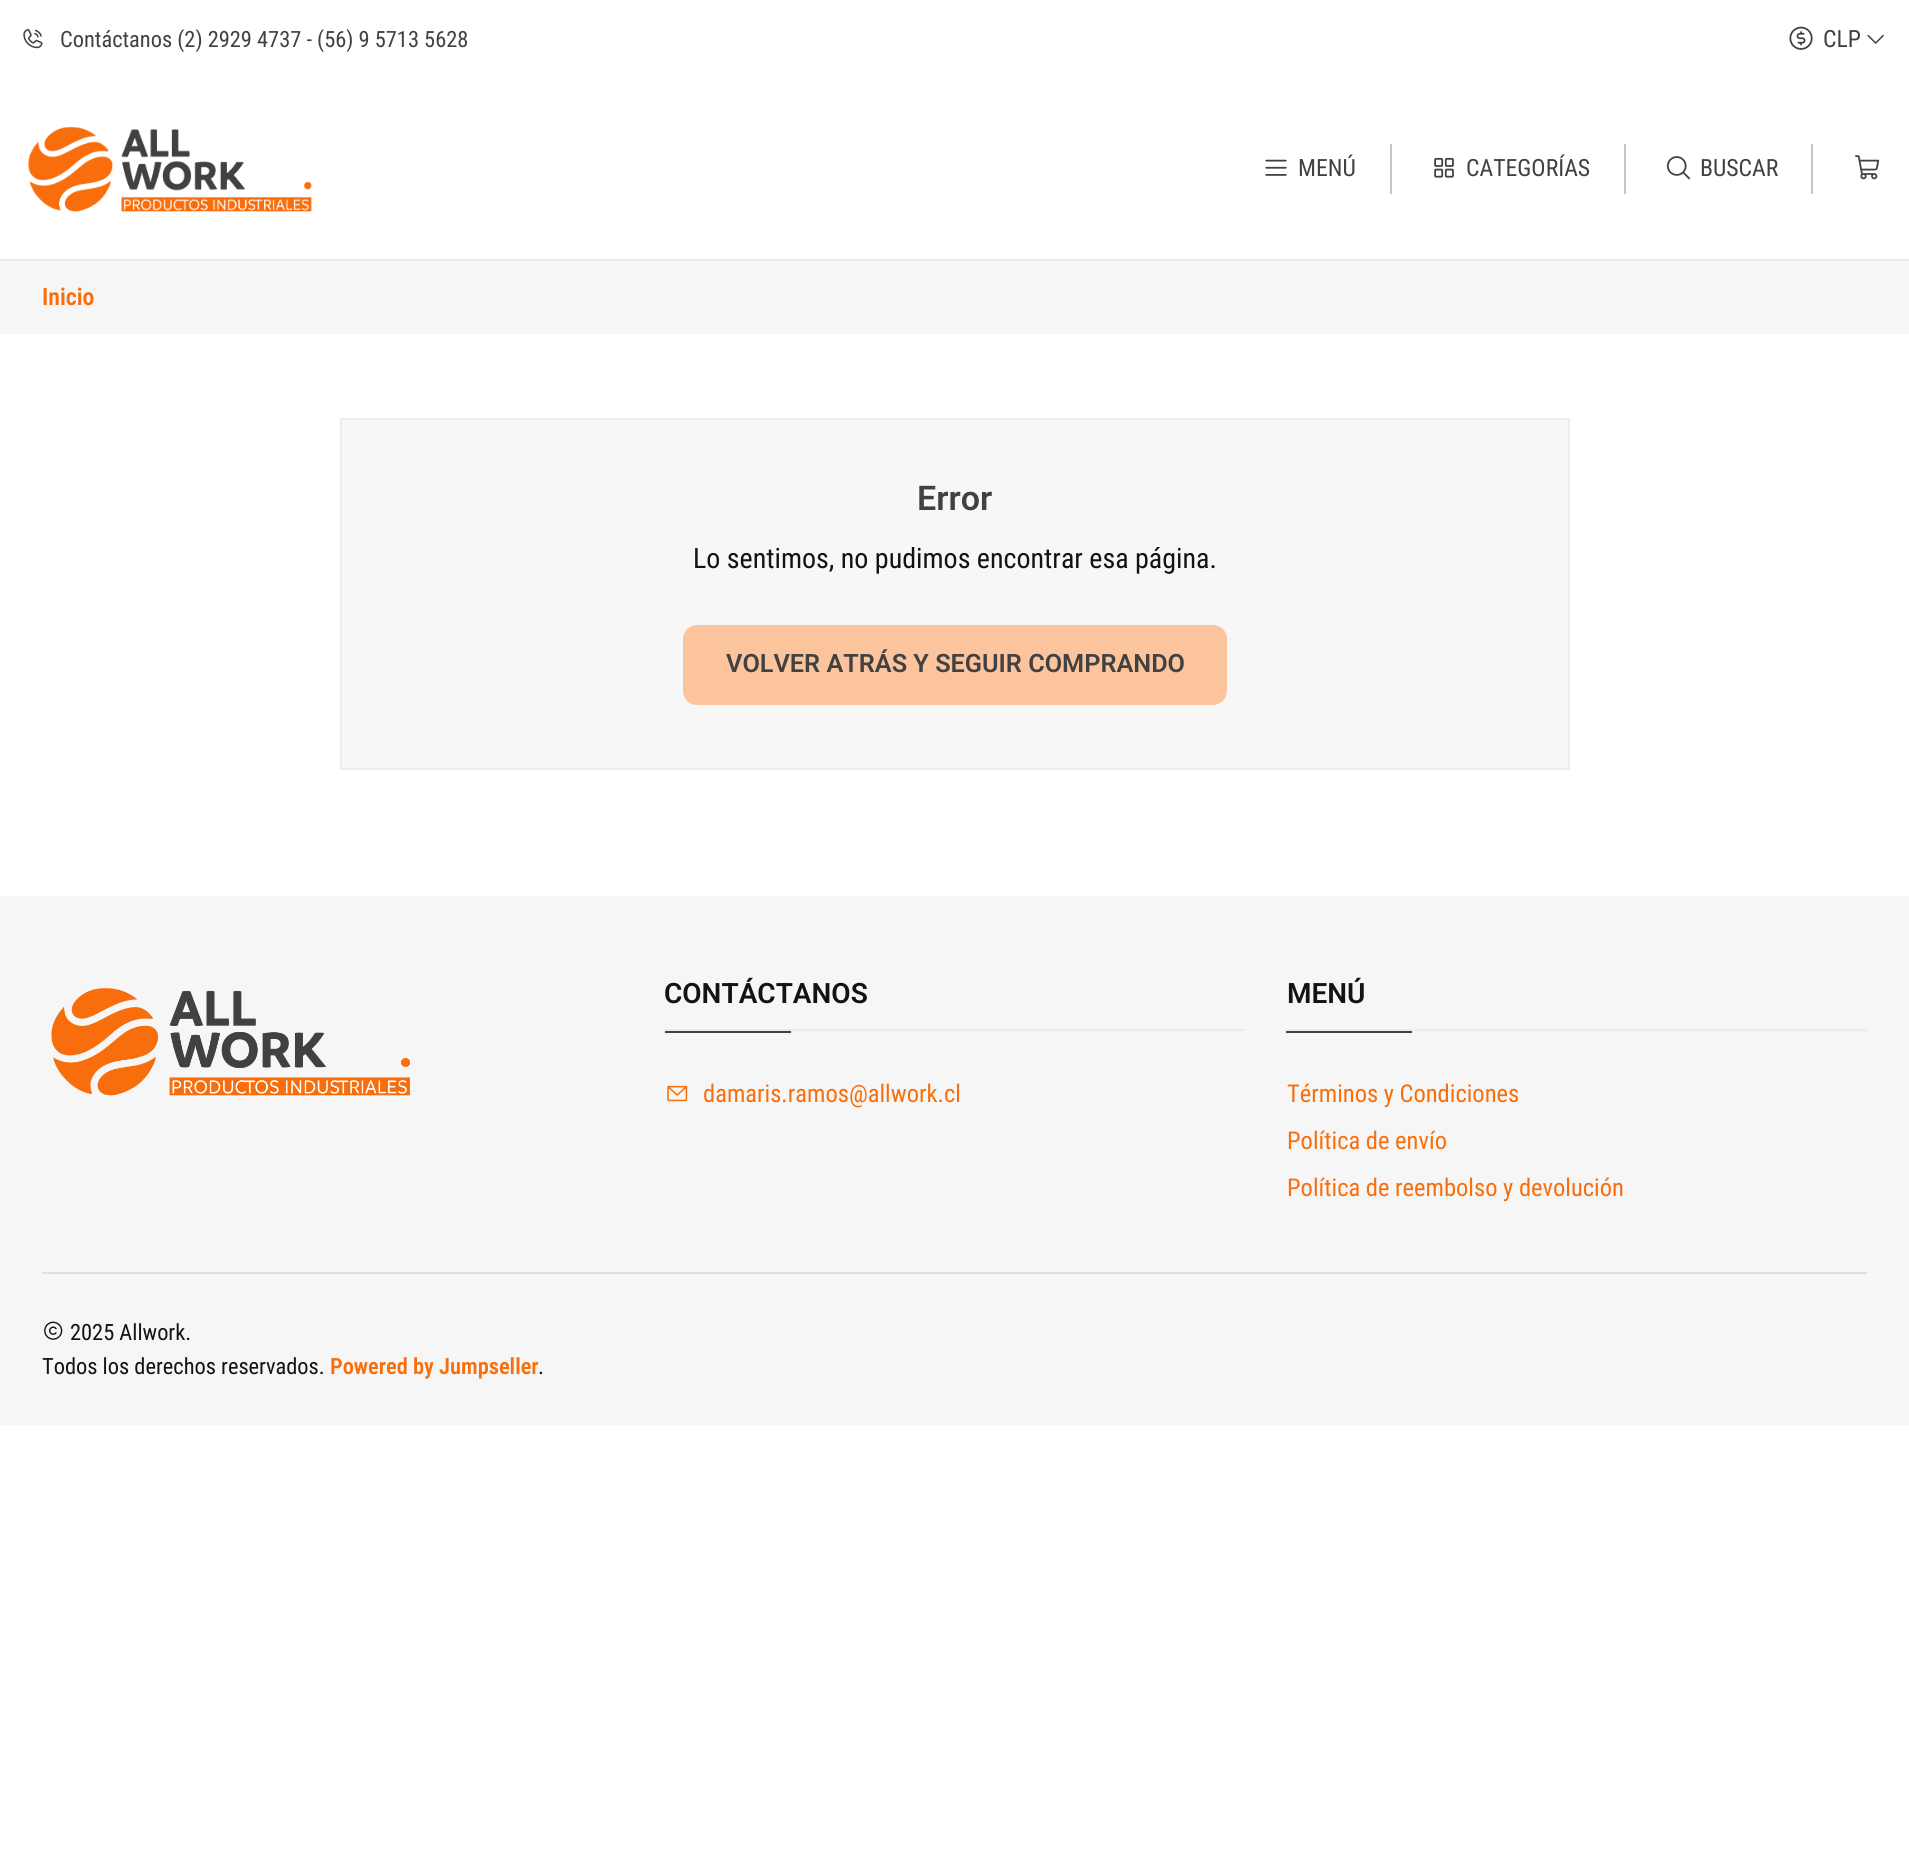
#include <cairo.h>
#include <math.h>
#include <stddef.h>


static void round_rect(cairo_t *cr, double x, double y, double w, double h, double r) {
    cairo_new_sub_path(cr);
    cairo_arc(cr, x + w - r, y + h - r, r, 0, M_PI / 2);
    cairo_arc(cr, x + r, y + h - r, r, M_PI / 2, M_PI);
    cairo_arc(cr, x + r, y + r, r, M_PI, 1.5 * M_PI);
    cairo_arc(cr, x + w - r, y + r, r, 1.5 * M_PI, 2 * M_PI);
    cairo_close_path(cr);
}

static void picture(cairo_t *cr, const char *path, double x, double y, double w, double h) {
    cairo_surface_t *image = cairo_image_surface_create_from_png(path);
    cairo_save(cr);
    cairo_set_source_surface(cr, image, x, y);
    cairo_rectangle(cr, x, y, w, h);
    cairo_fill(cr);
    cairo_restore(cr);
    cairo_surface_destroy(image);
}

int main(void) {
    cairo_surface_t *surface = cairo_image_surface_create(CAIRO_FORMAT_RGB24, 1909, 1857);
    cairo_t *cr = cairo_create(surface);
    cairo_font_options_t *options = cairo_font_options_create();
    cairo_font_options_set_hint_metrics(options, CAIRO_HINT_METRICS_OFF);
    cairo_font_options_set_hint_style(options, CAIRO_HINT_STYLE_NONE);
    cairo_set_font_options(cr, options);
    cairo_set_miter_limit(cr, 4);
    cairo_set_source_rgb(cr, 1, 1, 1);
    cairo_paint(cr);
    picture(cr, "img1.png", 23, 29, 20, 20);
    cairo_select_font_face(cr, "Roboto Condensed", CAIRO_FONT_SLANT_NORMAL, CAIRO_FONT_WEIGHT_NORMAL);
    cairo_set_font_size(cr, 22.4);
    cairo_set_source_rgb(cr, 0.255, 0.255, 0.255);
    cairo_move_to(cr, 60, 47);
    cairo_show_text(cr, "Contáctanos (2) 2929 4737 - (56) 9 5713 5628");
    picture(cr, "img2.png", 1789, 26, 24, 24);
    cairo_set_font_size(cr, 23.75);
    cairo_move_to(cr, 1823, 47);
    cairo_show_text(cr, "CLP");
    picture(cr, "img3.png", 1867, 34, 17, 10);
    cairo_set_source_rgb(cr, 0.925, 0.925, 0.925);
    cairo_rectangle(cr, 0, 259, 1909, 2);
    cairo_fill(cr);
    picture(cr, "img4.png", 28, 126, 284, 86);
    picture(cr, "img5.png", 1265, 159, 22, 17);
    cairo_set_source_rgb(cr, 0.255, 0.255, 0.255);
    cairo_move_to(cr, 1298, 176);
    cairo_show_text(cr, "MENÚ");
    cairo_set_source_rgb(cr, 0.776, 0.776, 0.776);
    cairo_rectangle(cr, 1390, 144, 2, 50);
    cairo_fill(cr);
    picture(cr, "img6.png", 1434, 157, 20, 21);
    cairo_set_source_rgb(cr, 0.255, 0.255, 0.255);
    cairo_move_to(cr, 1466, 176);
    cairo_show_text(cr, "CATEGORÍAS");
    cairo_set_source_rgb(cr, 0.776, 0.776, 0.776);
    cairo_rectangle(cr, 1624, 144, 2, 50);
    cairo_fill(cr);
    picture(cr, "img7.png", 1666, 156, 25, 24);
    cairo_set_source_rgb(cr, 0.255, 0.255, 0.255);
    cairo_move_to(cr, 1700, 176);
    cairo_show_text(cr, "BUSCAR");
    cairo_set_source_rgb(cr, 0.776, 0.776, 0.776);
    cairo_rectangle(cr, 1811, 144, 2, 50);
    cairo_fill(cr);
    picture(cr, "img8.png", 1855, 155, 25, 25);
    cairo_set_source_rgb(cr, 0.961, 0.961, 0.961);
    cairo_rectangle(cr, 0, 261, 1909, 73);
    cairo_fill(cr);
    cairo_select_font_face(cr, "Roboto Condensed SemiBold", CAIRO_FONT_SLANT_NORMAL, CAIRO_FONT_WEIGHT_NORMAL);
    cairo_set_source_rgb(cr, 0.976, 0.431, 0.047);
    cairo_move_to(cr, 42, 305);
    cairo_show_text(cr, "Inicio");
    cairo_set_source_rgb(cr, 0.965, 0.965, 0.965);
    cairo_rectangle(cr, 341, 419, 1228, 350);
    cairo_fill_preserve(cr);
    cairo_set_source_rgb(cr, 0.929, 0.929, 0.929);
    cairo_stroke(cr);
    cairo_select_font_face(cr, "Roboto SemiBold", CAIRO_FONT_SLANT_NORMAL, CAIRO_FONT_WEIGHT_NORMAL);
    cairo_set_font_size(cr, 34);
    cairo_set_source_rgb(cr, 0.255, 0.255, 0.255);
    cairo_move_to(cr, 917, 510);
    cairo_show_text(cr, "Error");
    cairo_select_font_face(cr, "Roboto Condensed", CAIRO_FONT_SLANT_NORMAL, CAIRO_FONT_WEIGHT_NORMAL);
    cairo_set_font_size(cr, 28);
    cairo_set_source_rgb(cr, 0.078, 0.078, 0.078);
    cairo_move_to(cr, 693, 568);
    cairo_show_text(cr, "Lo sentimos, no pudimos encontrar esa página.");
    cairo_set_source_rgb(cr, 0.988, 0.769, 0.612);
    round_rect(cr, 683, 625, 544, 80, 14);
    cairo_fill(cr);
    cairo_select_font_face(cr, "Roboto SemiBold", CAIRO_FONT_SLANT_NORMAL, CAIRO_FONT_WEIGHT_NORMAL);
    cairo_set_font_size(cr, 25.25);
    cairo_set_source_rgb(cr, 0.255, 0.255, 0.255);
    cairo_move_to(cr, 726, 672);
    cairo_show_text(cr, "VOLVER ATRÁS Y SEGUIR COMPRANDO");
    cairo_set_source_rgb(cr, 0.961, 0.961, 0.961);
    cairo_rectangle(cr, 0, 896, 1909, 529);
    cairo_fill(cr);
    picture(cr, "img9.png", 51, 988, 359, 108);
    cairo_set_source_rgb(cr, 0.918, 0.918, 0.918);
    cairo_rectangle(cr, 665, 1029, 579, 2);
    cairo_fill(cr);
    cairo_set_font_size(cr, 28);
    cairo_set_source_rgb(cr, 0.078, 0.078, 0.078);
    cairo_move_to(cr, 664, 1003);
    cairo_show_text(cr, "CONTÁCTANOS");
    cairo_set_source_rgb(cr, 0.255, 0.255, 0.255);
    cairo_rectangle(cr, 665, 1031, 126, 2);
    cairo_fill(cr);
    picture(cr, "img10.png", 667, 1085, 21, 17);
    cairo_select_font_face(cr, "Roboto Condensed", CAIRO_FONT_SLANT_NORMAL, CAIRO_FONT_WEIGHT_NORMAL);
    cairo_set_font_size(cr, 24.5);
    cairo_set_source_rgb(cr, 0.976, 0.431, 0.047);
    cairo_move_to(cr, 703, 1102);
    cairo_show_text(cr, "damaris.ramos@allwork.cl");
    cairo_set_source_rgb(cr, 0.918, 0.918, 0.918);
    cairo_rectangle(cr, 1286, 1029, 581, 2);
    cairo_fill(cr);
    cairo_select_font_face(cr, "Roboto SemiBold", CAIRO_FONT_SLANT_NORMAL, CAIRO_FONT_WEIGHT_NORMAL);
    cairo_set_font_size(cr, 28);
    cairo_set_source_rgb(cr, 0.078, 0.078, 0.078);
    cairo_move_to(cr, 1287, 1003);
    cairo_show_text(cr, "MENÚ");
    cairo_set_source_rgb(cr, 0.255, 0.255, 0.255);
    cairo_rectangle(cr, 1286, 1031, 126, 2);
    cairo_fill(cr);
    cairo_select_font_face(cr, "Roboto Condensed", CAIRO_FONT_SLANT_NORMAL, CAIRO_FONT_WEIGHT_NORMAL);
    cairo_set_font_size(cr, 24.5);
    cairo_set_source_rgb(cr, 0.976, 0.431, 0.047);
    cairo_move_to(cr, 1287, 1102);
    cairo_show_text(cr, "Términos y Condiciones");
    cairo_move_to(cr, 1287, 1149);
    cairo_show_text(cr, "Política de envío");
    cairo_move_to(cr, 1287, 1196);
    cairo_show_text(cr, "Política de reembolso y devolución");
    cairo_set_source_rgb(cr, 0.875, 0.875, 0.875);
    cairo_rectangle(cr, 42, 1272, 1825, 2);
    cairo_fill(cr);
    picture(cr, "img11.png", 44, 1321, 19, 19);
    cairo_set_font_size(cr, 22.4);
    cairo_set_source_rgb(cr, 0.078, 0.078, 0.078);
    cairo_move_to(cr, 70, 1340);
    cairo_show_text(cr, "2025 Allwork.");
    cairo_move_to(cr, 42, 1374);
    cairo_show_text(cr, "Todos los derechos reservados.");
    cairo_select_font_face(cr, "Roboto Condensed SemiBold", CAIRO_FONT_SLANT_NORMAL, CAIRO_FONT_WEIGHT_NORMAL);
    cairo_set_source_rgb(cr, 0.976, 0.431, 0.047);
    cairo_move_to(cr, 330, 1374);
    cairo_show_text(cr, "Powered by Jumpseller");
    cairo_select_font_face(cr, "Roboto Condensed", CAIRO_FONT_SLANT_NORMAL, CAIRO_FONT_WEIGHT_NORMAL);
    cairo_set_source_rgb(cr, 0.078, 0.078, 0.078);
    cairo_move_to(cr, 538, 1374);
    cairo_show_text(cr, ".");
    cairo_surface_write_to_png(surface, "page.png");
    cairo_font_options_destroy(options);
    cairo_destroy(cr);
    cairo_surface_destroy(surface);
    return 0;
}
